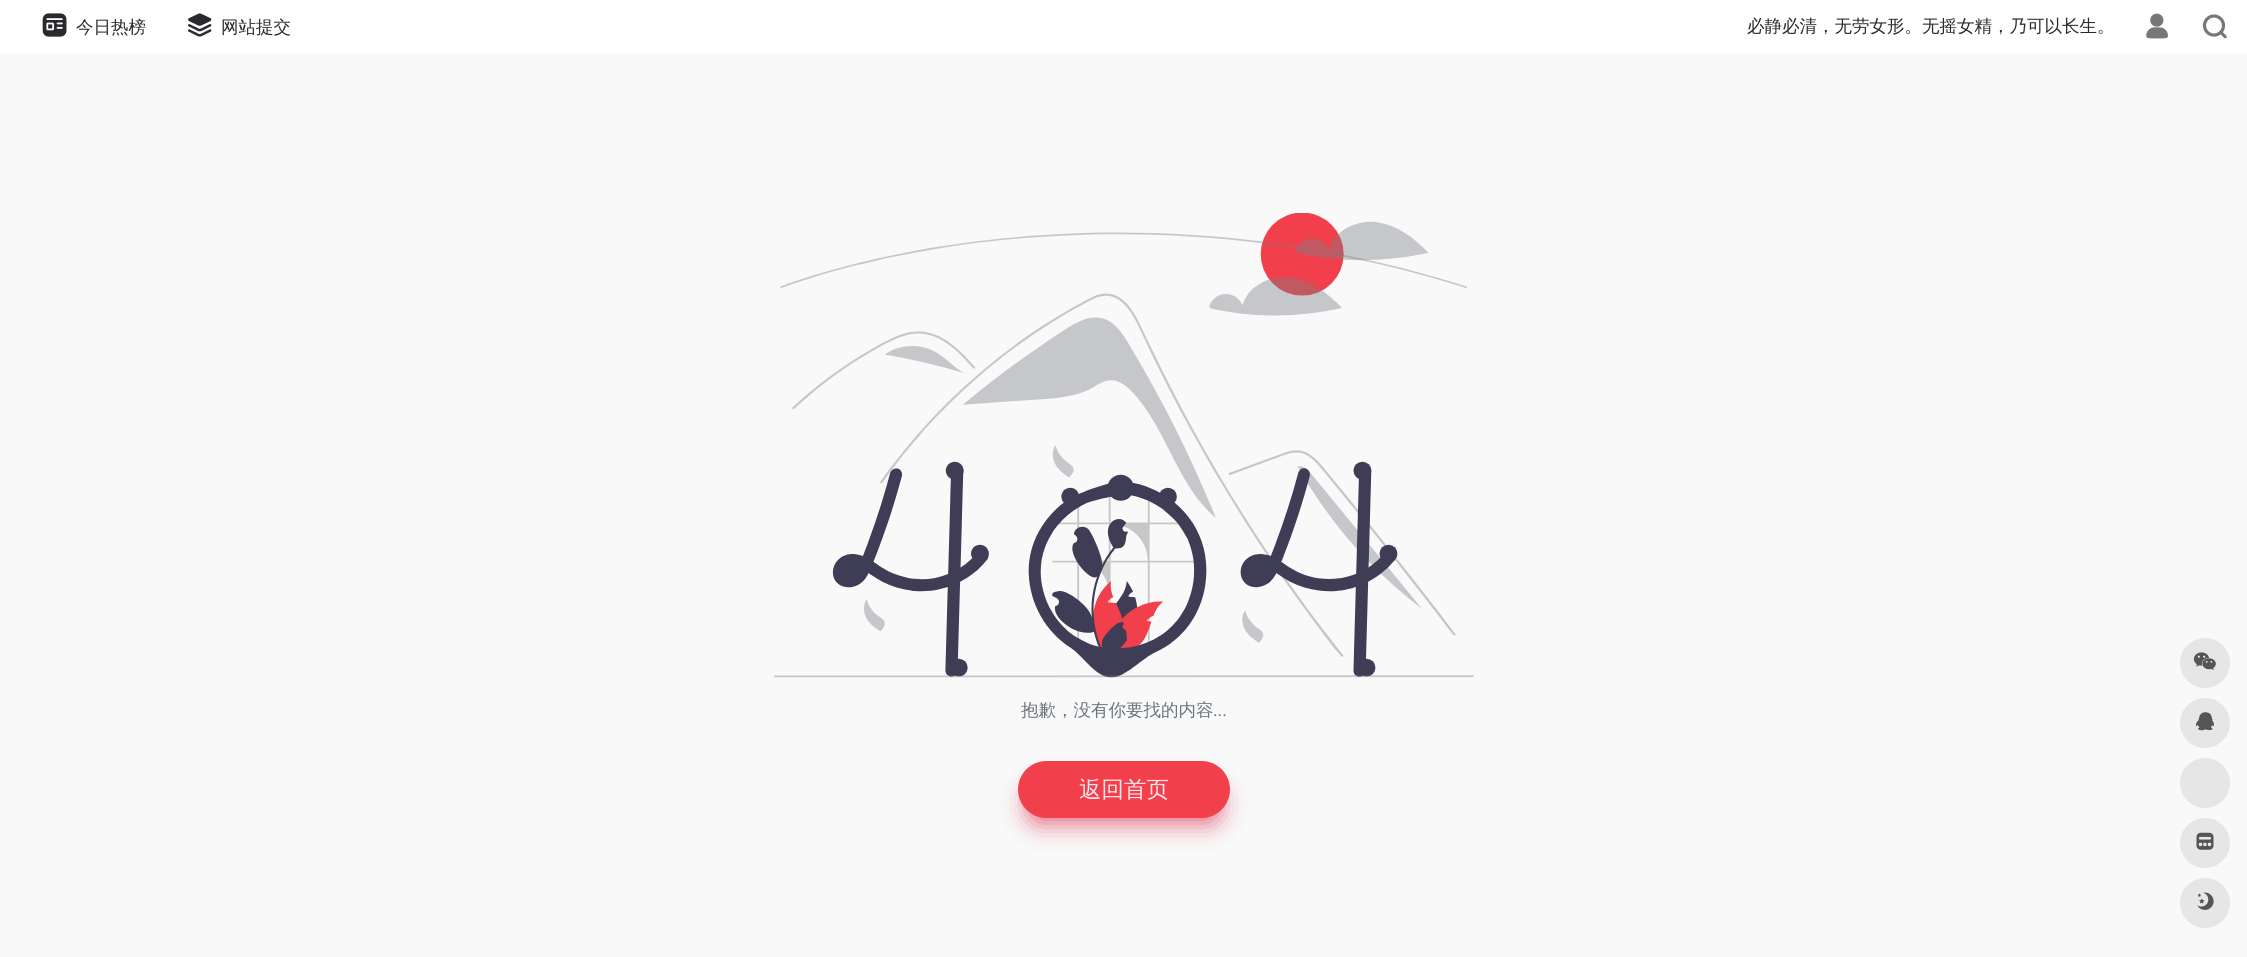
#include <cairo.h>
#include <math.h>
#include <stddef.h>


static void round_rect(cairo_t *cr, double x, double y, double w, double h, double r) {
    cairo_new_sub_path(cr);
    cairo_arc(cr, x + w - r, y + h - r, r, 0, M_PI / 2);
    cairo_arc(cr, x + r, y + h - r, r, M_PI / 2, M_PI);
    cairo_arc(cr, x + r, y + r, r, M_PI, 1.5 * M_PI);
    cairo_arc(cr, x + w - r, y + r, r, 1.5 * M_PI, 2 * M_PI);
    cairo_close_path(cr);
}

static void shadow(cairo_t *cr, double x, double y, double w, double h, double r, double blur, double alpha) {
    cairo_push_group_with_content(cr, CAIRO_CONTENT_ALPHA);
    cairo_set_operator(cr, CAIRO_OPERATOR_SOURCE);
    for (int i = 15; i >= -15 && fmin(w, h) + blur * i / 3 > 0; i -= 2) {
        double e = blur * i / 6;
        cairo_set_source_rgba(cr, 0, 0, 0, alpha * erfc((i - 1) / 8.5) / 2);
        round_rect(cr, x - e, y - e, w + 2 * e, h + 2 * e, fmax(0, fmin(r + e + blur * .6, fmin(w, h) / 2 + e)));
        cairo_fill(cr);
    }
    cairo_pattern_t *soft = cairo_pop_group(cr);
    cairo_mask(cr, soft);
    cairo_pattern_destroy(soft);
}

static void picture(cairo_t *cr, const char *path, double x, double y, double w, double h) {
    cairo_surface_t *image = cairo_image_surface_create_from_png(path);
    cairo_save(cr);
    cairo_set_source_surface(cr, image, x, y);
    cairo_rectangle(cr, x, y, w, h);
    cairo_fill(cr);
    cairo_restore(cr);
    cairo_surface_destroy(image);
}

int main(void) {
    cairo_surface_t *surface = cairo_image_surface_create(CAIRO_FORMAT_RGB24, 2247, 957);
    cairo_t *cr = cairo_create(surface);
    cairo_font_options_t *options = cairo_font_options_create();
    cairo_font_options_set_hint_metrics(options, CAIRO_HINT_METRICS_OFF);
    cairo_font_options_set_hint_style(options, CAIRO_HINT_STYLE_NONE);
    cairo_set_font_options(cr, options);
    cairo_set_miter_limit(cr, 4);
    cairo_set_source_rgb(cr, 0.976, 0.976, 0.976);
    cairo_paint(cr);
    cairo_set_source_rgb(cr, 1, 1, 1);
    cairo_rectangle(cr, 0, 0, 2247, 54);
    cairo_fill(cr);
    picture(cr, "img1.png", 42, 13, 25, 24);
    cairo_select_font_face(cr, "WenQuanYi Zen Hei Medium", CAIRO_FONT_SLANT_NORMAL, CAIRO_FONT_WEIGHT_NORMAL);
    cairo_set_font_size(cr, 17.5);
    cairo_set_source_rgb(cr, 0.157, 0.165, 0.176);
    cairo_move_to(cr, 76, 33);
    cairo_show_text(cr, "今日热榜");
    picture(cr, "img2.png", 188, 13, 24, 24);
    cairo_move_to(cr, 221, 33);
    cairo_show_text(cr, "网站提交");
    cairo_move_to(cr, 1747, 32);
    cairo_show_text(cr, "必静必清，无劳女形。无摇女精，乃可以长生。");
    picture(cr, "img3.png", 2146, 13, 22, 26);
    picture(cr, "img4.png", 2202, 14, 25, 25);
    picture(cr, "img5.png", 774, 213, 700, 465);
    cairo_set_source_rgb(cr, 0.424, 0.459, 0.49);
    cairo_move_to(cr, 1021, 716);
    cairo_show_text(cr, "抱歉，没有你要找的内容");
    cairo_select_font_face(cr, "Roboto", CAIRO_FONT_SLANT_NORMAL, CAIRO_FONT_WEIGHT_NORMAL);
    cairo_move_to(cr, 1213, 716);
    cairo_show_text(cr, "...");
    cairo_set_source_rgb(cr, 0.859, 0.122, 0.259);
    shadow(cr, 1028, 786, 192, 37, 18.5, 12.5, 0.7);
    cairo_set_source_rgb(cr, 0.945, 0.251, 0.294);
    round_rect(cr, 1018, 761, 212, 57, 28.5);
    cairo_fill(cr);
    cairo_select_font_face(cr, "WenQuanYi Zen Hei Medium", CAIRO_FONT_SLANT_NORMAL, CAIRO_FONT_WEIGHT_NORMAL);
    cairo_set_font_size(cr, 22.5);
    cairo_set_source_rgb(cr, 1, 0.906, 0.922);
    cairo_move_to(cr, 1079, 797);
    cairo_show_text(cr, "返回首页");
    cairo_set_source_rgb(cr, 0.902, 0.902, 0.902);
    cairo_new_path(cr);
    cairo_arc(cr, 2205, 663, 25, 0, 2 * M_PI);
    cairo_fill(cr);
    picture(cr, "img6.png", 2193, 652, 23, 18);
    cairo_arc(cr, 2205, 723, 25, 0, 2 * M_PI);
    cairo_fill(cr);
    picture(cr, "img7.png", 2196, 712, 18, 19);
    cairo_arc(cr, 2205, 783, 25, 0, 2 * M_PI);
    cairo_fill(cr);
    cairo_arc(cr, 2205, 843, 25, 0, 2 * M_PI);
    cairo_fill(cr);
    picture(cr, "img8.png", 2196, 832, 18, 18);
    cairo_arc(cr, 2205, 903, 25, 0, 2 * M_PI);
    cairo_fill(cr);
    picture(cr, "img9.png", 2197, 892, 17, 18);
    cairo_surface_write_to_png(surface, "page.png");
    cairo_font_options_destroy(options);
    cairo_destroy(cr);
    cairo_surface_destroy(surface);
    return 0;
}
